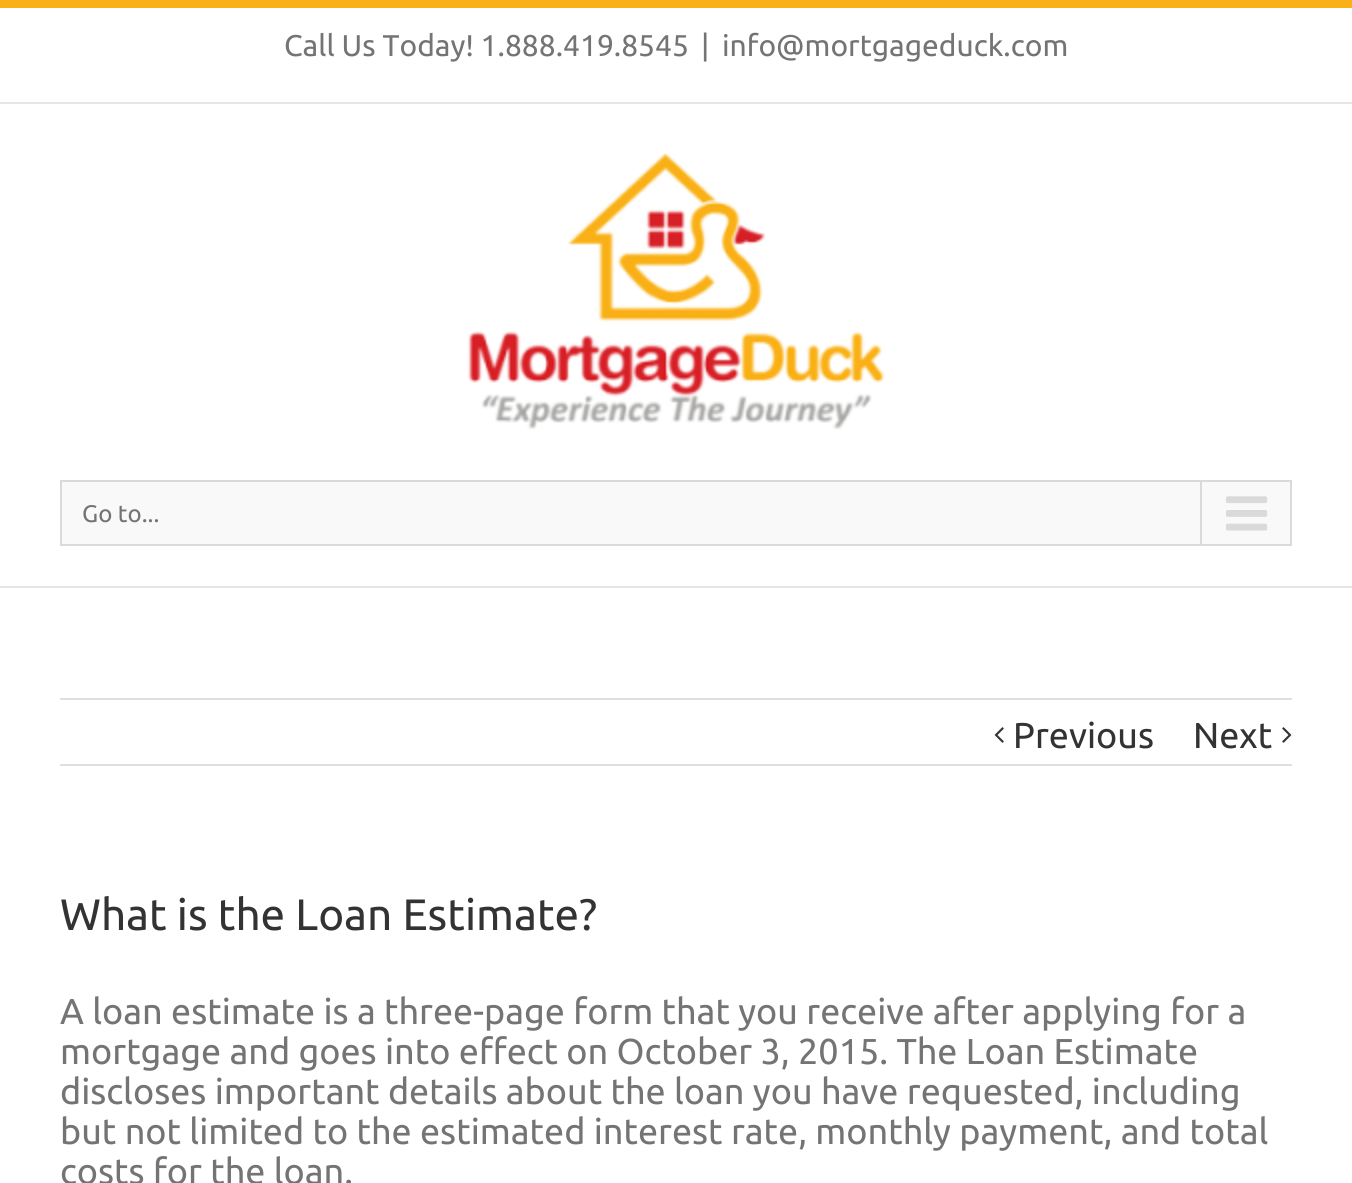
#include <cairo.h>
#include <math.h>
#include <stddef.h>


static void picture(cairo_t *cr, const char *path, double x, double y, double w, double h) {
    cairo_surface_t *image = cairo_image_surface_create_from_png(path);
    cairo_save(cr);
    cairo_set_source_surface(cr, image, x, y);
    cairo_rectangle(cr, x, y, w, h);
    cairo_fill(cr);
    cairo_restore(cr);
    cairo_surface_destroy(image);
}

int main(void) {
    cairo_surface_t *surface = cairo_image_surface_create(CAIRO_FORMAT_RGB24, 1352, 1183);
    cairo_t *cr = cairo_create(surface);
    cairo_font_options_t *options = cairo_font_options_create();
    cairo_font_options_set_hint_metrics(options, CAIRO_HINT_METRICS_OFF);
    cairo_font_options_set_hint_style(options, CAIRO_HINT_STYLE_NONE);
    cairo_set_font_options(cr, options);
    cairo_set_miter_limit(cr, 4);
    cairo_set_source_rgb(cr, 1, 1, 1);
    cairo_paint(cr);
    cairo_set_source_rgb(cr, 0.98, 0.694, 0.09);
    cairo_rectangle(cr, 0, 0, 1352, 8);
    cairo_fill(cr);
    cairo_set_source_rgb(cr, 0.898, 0.898, 0.898);
    cairo_rectangle(cr, 0, 102, 1352, 2);
    cairo_fill(cr);
    cairo_select_font_face(cr, "Ubuntu", CAIRO_FONT_SLANT_NORMAL, CAIRO_FONT_WEIGHT_NORMAL);
    cairo_set_font_size(cr, 30);
    cairo_set_source_rgb(cr, 0.455, 0.455, 0.455);
    cairo_move_to(cr, 284, 56);
    cairo_show_text(cr, "Call Us Today! 1.888.419.8545");
    cairo_move_to(cr, 701, 56);
    cairo_show_text(cr, "|");
    cairo_move_to(cr, 722, 56);
    cairo_show_text(cr, "info@mortgageduck.com");
    cairo_set_source_rgb(cr, 0.898, 0.898, 0.898);
    cairo_rectangle(cr, 0, 586, 1352, 2);
    cairo_fill(cr);
    picture(cr, "img1.png", 467, 153, 418, 277);
    cairo_set_source_rgb(cr, 0.976, 0.976, 0.976);
    cairo_rectangle(cr, 61, 481, 1230, 64);
    cairo_fill_preserve(cr);
    cairo_set_source_rgb(cr, 0.855, 0.855, 0.855);
    cairo_stroke(cr);
    cairo_set_font_size(cr, 24);
    cairo_set_source_rgb(cr, 0.455, 0.455, 0.455);
    cairo_move_to(cr, 82, 522);
    cairo_show_text(cr, "Go to...");
    cairo_set_source_rgb(cr, 0.855, 0.855, 0.855);
    cairo_rectangle(cr, 1200, 482, 2, 62);
    cairo_fill(cr);
    picture(cr, "img2.png", 1226, 496, 42, 35);
    cairo_set_source_rgb(cr, 0.878, 0.871, 0.871);
    cairo_rectangle(cr, 60, 698, 1232, 2);
    cairo_fill(cr);
    cairo_rectangle(cr, 60, 764, 1232, 2);
    cairo_fill(cr);
    picture(cr, "img3.png", 994, 727, 10, 16);
    cairo_set_font_size(cr, 36);
    cairo_set_source_rgb(cr, 0.2, 0.2, 0.2);
    cairo_move_to(cr, 1013, 748);
    cairo_show_text(cr, "Previous");
    cairo_move_to(cr, 1193, 748);
    cairo_show_text(cr, "Next");
    picture(cr, "img4.png", 1282, 727, 10, 16);
    cairo_set_font_size(cr, 44);
    cairo_move_to(cr, 60, 930);
    cairo_show_text(cr, "What is the Loan Estimate?");
    cairo_set_font_size(cr, 36);
    cairo_set_source_rgb(cr, 0.455, 0.455, 0.455);
    cairo_move_to(cr, 60, 1024);
    cairo_show_text(cr, "A loan estimate is a three-page form that you receive after applying for a");
    cairo_move_to(cr, 60, 1064);
    cairo_show_text(cr, "mortgage and goes into effect on October 3, 2015. The Loan Estimate");
    cairo_move_to(cr, 60, 1104);
    cairo_show_text(cr, "discloses important details about the loan you have requested, including");
    cairo_move_to(cr, 60, 1144);
    cairo_show_text(cr, "but not limited to the estimated interest rate, monthly payment, and total");
    cairo_move_to(cr, 60, 1184);
    cairo_show_text(cr, "costs for the loan.");
    cairo_surface_write_to_png(surface, "page.png");
    cairo_font_options_destroy(options);
    cairo_destroy(cr);
    cairo_surface_destroy(surface);
    return 0;
}
